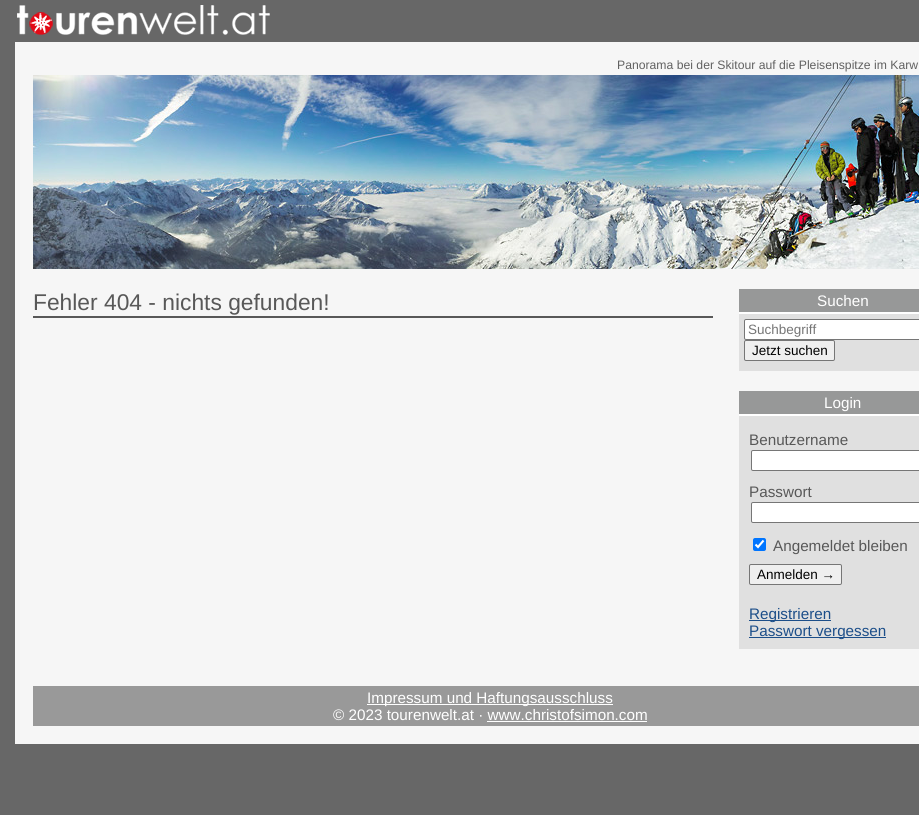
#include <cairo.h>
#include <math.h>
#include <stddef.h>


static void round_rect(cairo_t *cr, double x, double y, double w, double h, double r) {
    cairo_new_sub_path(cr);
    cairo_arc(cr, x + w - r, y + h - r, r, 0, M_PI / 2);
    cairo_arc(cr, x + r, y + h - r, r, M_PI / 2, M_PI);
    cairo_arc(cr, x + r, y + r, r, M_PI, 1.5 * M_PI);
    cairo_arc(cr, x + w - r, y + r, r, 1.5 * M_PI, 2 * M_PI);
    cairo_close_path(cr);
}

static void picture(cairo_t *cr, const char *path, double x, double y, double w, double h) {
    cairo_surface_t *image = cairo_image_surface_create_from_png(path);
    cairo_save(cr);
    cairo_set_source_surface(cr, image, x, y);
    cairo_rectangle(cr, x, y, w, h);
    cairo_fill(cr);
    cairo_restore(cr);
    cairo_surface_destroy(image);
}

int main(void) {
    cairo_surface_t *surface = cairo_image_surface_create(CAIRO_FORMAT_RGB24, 919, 815);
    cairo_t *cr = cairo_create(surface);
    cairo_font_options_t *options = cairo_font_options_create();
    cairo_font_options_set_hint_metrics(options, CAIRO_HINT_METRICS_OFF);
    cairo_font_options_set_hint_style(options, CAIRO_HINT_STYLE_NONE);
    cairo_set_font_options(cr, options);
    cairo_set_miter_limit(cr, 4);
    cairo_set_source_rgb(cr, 0.404, 0.404, 0.404);
    cairo_paint(cr);
    picture(cr, "img1.png", 17, 5, 253, 30);
    cairo_set_source_rgb(cr, 0.961, 0.961, 0.961);
    cairo_rectangle(cr, 15, 42, 904, 702);
    cairo_fill(cr);
    cairo_select_font_face(cr, "Liberation Sans", CAIRO_FONT_SLANT_NORMAL, CAIRO_FONT_WEIGHT_NORMAL);
    cairo_set_font_size(cr, 12.2);
    cairo_set_source_rgb(cr, 0.38, 0.38, 0.38);
    cairo_move_to(cr, 617, 69);
    cairo_show_text(cr, "Panorama bei der Skitour auf die Pleisenspitze im Karw");
    picture(cr, "img2.png", 33, 75, 886, 194);
    cairo_set_source_rgb(cr, 0.345, 0.345, 0.345);
    cairo_rectangle(cr, 33, 316, 680, 2);
    cairo_fill(cr);
    cairo_set_font_size(cr, 22.8);
    cairo_move_to(cr, 33, 310);
    cairo_show_text(cr, "Fehler 404 - nichts gefunden!");
    cairo_set_source_rgb(cr, 0.878, 0.878, 0.878);
    cairo_rectangle(cr, 739, 314, 180, 57);
    cairo_fill(cr);
    cairo_set_source_rgb(cr, 0.592, 0.596, 0.596);
    cairo_rectangle(cr, 739, 289, 180, 23);
    cairo_fill(cr);
    cairo_set_source_rgb(cr, 1, 1, 1);
    cairo_rectangle(cr, 739, 312, 180, 2);
    cairo_fill(cr);
    cairo_set_font_size(cr, 15.25);
    cairo_move_to(cr, 817, 306);
    cairo_show_text(cr, "Suchen");
    round_rect(cr, 744.5, 319.5, 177, 20, 1.5);
    cairo_fill_preserve(cr);
    cairo_set_source_rgb(cr, 0.463, 0.463, 0.463);
    cairo_set_line_width(cr, 1);
    cairo_stroke(cr);
    cairo_set_font_size(cr, 13.5);
    cairo_set_source_rgb(cr, 0.459, 0.459, 0.459);
    cairo_move_to(cr, 748, 334);
    cairo_show_text(cr, "Suchbegriff");
    cairo_set_source_rgb(cr, 0.937, 0.937, 0.937);
    round_rect(cr, 744.5, 340.5, 90, 20, 1.5);
    cairo_fill_preserve(cr);
    cairo_set_source_rgb(cr, 0.463, 0.463, 0.463);
    cairo_stroke(cr);
    cairo_set_source_rgb(cr, 0, 0, 0);
    cairo_move_to(cr, 752, 355);
    cairo_show_text(cr, "Jetzt suchen");
    cairo_set_source_rgb(cr, 0.878, 0.878, 0.878);
    cairo_rectangle(cr, 739, 416, 180, 233);
    cairo_fill(cr);
    cairo_set_source_rgb(cr, 0.592, 0.596, 0.596);
    cairo_rectangle(cr, 739, 391, 180, 23);
    cairo_fill(cr);
    cairo_set_source_rgb(cr, 1, 1, 1);
    cairo_rectangle(cr, 739, 414, 180, 2);
    cairo_fill(cr);
    cairo_set_font_size(cr, 15.25);
    cairo_move_to(cr, 824, 408);
    cairo_show_text(cr, "Login");
    cairo_set_source_rgb(cr, 0.345, 0.345, 0.345);
    cairo_move_to(cr, 749, 445);
    cairo_show_text(cr, "Benutzername");
    cairo_set_source_rgb(cr, 1, 1, 1);
    round_rect(cr, 751.5, 450.5, 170, 20, 1.5);
    cairo_fill_preserve(cr);
    cairo_set_source_rgb(cr, 0.463, 0.463, 0.463);
    cairo_stroke(cr);
    cairo_set_source_rgb(cr, 0.345, 0.345, 0.345);
    cairo_move_to(cr, 749, 497);
    cairo_show_text(cr, "Passwort");
    cairo_set_source_rgb(cr, 1, 1, 1);
    round_rect(cr, 751.5, 502.5, 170, 20, 1.5);
    cairo_fill_preserve(cr);
    cairo_set_source_rgb(cr, 0.463, 0.463, 0.463);
    cairo_stroke(cr);
    cairo_set_source_rgb(cr, 0, 0.459, 1);
    round_rect(cr, 753, 538, 13, 13, 2);
    cairo_fill(cr);
    cairo_new_path(cr);
    cairo_move_to(cr, 755.5, 544.5);
    cairo_line_to(cr, 758, 547);
    cairo_line_to(cr, 763.5, 540.5);
    cairo_set_source_rgb(cr, 1, 1, 1);
    cairo_set_line_width(cr, 2.1);
    cairo_stroke(cr);
    cairo_set_source_rgb(cr, 0.345, 0.345, 0.345);
    cairo_move_to(cr, 773, 551);
    cairo_show_text(cr, "Angemeldet bleiben");
    cairo_set_source_rgb(cr, 0.937, 0.937, 0.937);
    round_rect(cr, 749.5, 564.5, 92, 20, 1.5);
    cairo_fill_preserve(cr);
    cairo_set_source_rgb(cr, 0.463, 0.463, 0.463);
    cairo_set_line_width(cr, 1);
    cairo_stroke(cr);
    cairo_set_font_size(cr, 13.5);
    cairo_set_source_rgb(cr, 0, 0, 0);
    cairo_move_to(cr, 757, 579);
    cairo_show_text(cr, "Anmelden →");
    cairo_set_source_rgb(cr, 0.11, 0.306, 0.537);
    cairo_rectangle(cr, 749, 620, 82, 1);
    cairo_fill(cr);
    cairo_set_font_size(cr, 15.25);
    cairo_move_to(cr, 749, 619);
    cairo_show_text(cr, "Registrieren");
    cairo_rectangle(cr, 749, 637, 137, 1);
    cairo_fill(cr);
    cairo_move_to(cr, 749, 636);
    cairo_show_text(cr, "Passwort vergessen");
    cairo_set_source_rgb(cr, 0.6, 0.6, 0.6);
    cairo_rectangle(cr, 33, 686, 886, 40);
    cairo_fill(cr);
    cairo_set_source_rgb(cr, 1, 1, 1);
    cairo_rectangle(cr, 367, 704, 246, 1);
    cairo_fill(cr);
    cairo_move_to(cr, 367, 703);
    cairo_show_text(cr, "Impressum und Haftungsausschluss");
    cairo_move_to(cr, 333, 720);
    cairo_show_text(cr, "© 2023 tourenwelt.at · www.christofsimon.com");
    cairo_rectangle(cr, 487, 721, 160, 1);
    cairo_fill(cr);
    cairo_surface_write_to_png(surface, "page.png");
    cairo_font_options_destroy(options);
    cairo_destroy(cr);
    cairo_surface_destroy(surface);
    return 0;
}
